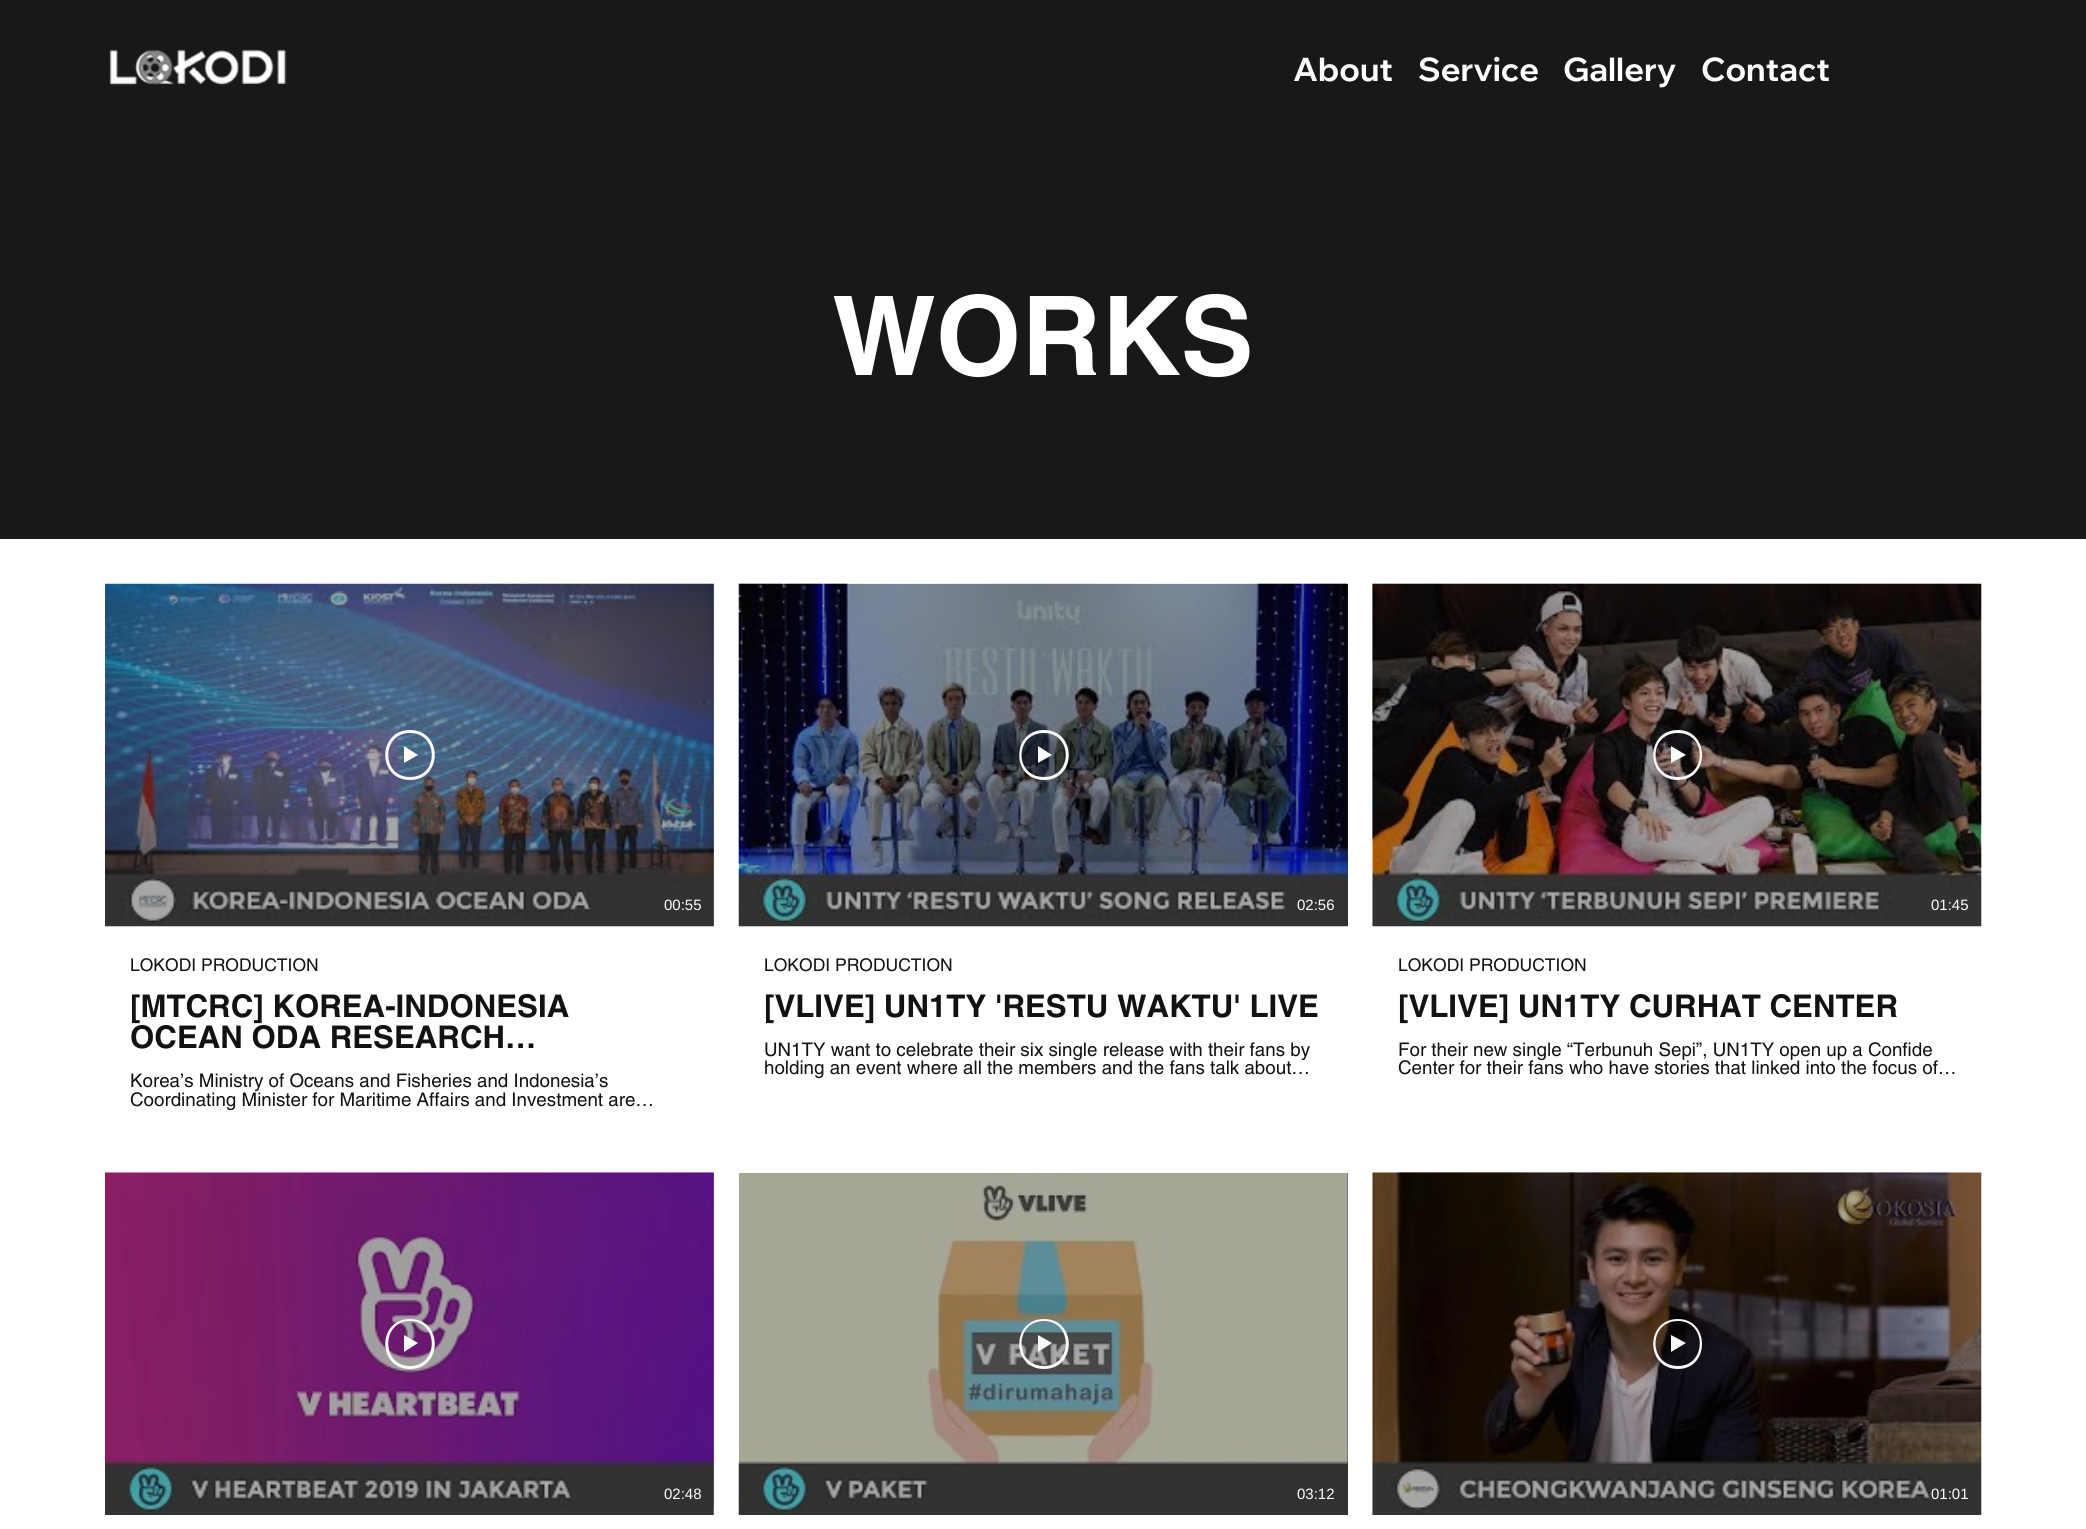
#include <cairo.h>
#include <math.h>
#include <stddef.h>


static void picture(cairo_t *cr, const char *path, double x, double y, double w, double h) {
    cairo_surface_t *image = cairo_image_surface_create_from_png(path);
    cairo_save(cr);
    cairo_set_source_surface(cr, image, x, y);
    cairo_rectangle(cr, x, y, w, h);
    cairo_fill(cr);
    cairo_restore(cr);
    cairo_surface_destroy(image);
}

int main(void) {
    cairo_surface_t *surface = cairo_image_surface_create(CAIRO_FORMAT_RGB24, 2086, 1529);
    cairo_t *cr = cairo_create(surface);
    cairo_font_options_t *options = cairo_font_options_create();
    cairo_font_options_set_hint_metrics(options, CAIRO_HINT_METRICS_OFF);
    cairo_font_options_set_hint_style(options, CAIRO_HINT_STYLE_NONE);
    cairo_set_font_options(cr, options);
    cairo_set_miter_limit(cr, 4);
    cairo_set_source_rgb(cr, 1, 1, 1);
    cairo_paint(cr);
    cairo_set_source_rgb(cr, 0.094, 0.094, 0.094);
    cairo_rectangle(cr, 0, 0, 2086, 539);
    cairo_fill(cr);
    picture(cr, "img1.png", 109, 49, 178, 37);
    cairo_select_font_face(cr, "Wix Madefor Display", CAIRO_FONT_SLANT_NORMAL, CAIRO_FONT_WEIGHT_BOLD);
    cairo_set_font_size(cr, 32.5);
    cairo_set_source_rgb(cr, 1, 1, 1);
    cairo_move_to(cr, 1293, 81);
    cairo_show_text(cr, "About");
    cairo_move_to(cr, 1418, 81);
    cairo_show_text(cr, "Service");
    cairo_move_to(cr, 1563, 81);
    cairo_show_text(cr, "Gallery");
    cairo_move_to(cr, 1701, 81);
    cairo_show_text(cr, "Contact");
    cairo_select_font_face(cr, "helvetica", CAIRO_FONT_SLANT_NORMAL, CAIRO_FONT_WEIGHT_BOLD);
    cairo_set_font_size(cr, 110);
    cairo_move_to(cr, 832, 375);
    cairo_show_text(cr, "WORKS");
    picture(cr, "img2.png", 105, 583, 609, 344);
    picture(cr, "img3.png", 105, 583, 609, 344);
    cairo_set_source_rgb(cr, 0.98, 0.98, 0.98);
    cairo_new_path(cr);
    cairo_move_to(cr, 410, 777);
    cairo_curve_to(cr, 439, 777, 439, 733, 410, 733);
    cairo_curve_to(cr, 381, 733, 381, 777, 410, 777);
    cairo_close_path(cr);
    cairo_move_to(cr, 410, 780);
    cairo_curve_to(cr, 377, 780, 377, 730, 410, 730);
    cairo_curve_to(cr, 443, 730, 443, 780, 410, 780);
    cairo_close_path(cr);
    cairo_move_to(cr, 418, 755);
    cairo_line_to(cr, 404, 746);
    cairo_line_to(cr, 404, 763);
    cairo_close_path(cr);
    cairo_fill(cr);
    cairo_select_font_face(cr, "Liberation Sans", CAIRO_FONT_SLANT_NORMAL, CAIRO_FONT_WEIGHT_NORMAL);
    cairo_set_font_size(cr, 15);
    cairo_set_source_rgb(cr, 1, 1, 1);
    cairo_move_to(cr, 664, 910);
    cairo_show_text(cr, "00:55");
    cairo_select_font_face(cr, "helvetica", CAIRO_FONT_SLANT_NORMAL, CAIRO_FONT_WEIGHT_NORMAL);
    cairo_set_font_size(cr, 17.5);
    cairo_set_source_rgb(cr, 0.071, 0.071, 0.071);
    cairo_move_to(cr, 130, 971);
    cairo_show_text(cr, "LOKODI PRODUCTION");
    cairo_select_font_face(cr, "helvetica", CAIRO_FONT_SLANT_NORMAL, CAIRO_FONT_WEIGHT_BOLD);
    cairo_set_font_size(cr, 31.25);
    cairo_move_to(cr, 130, 1017);
    cairo_show_text(cr, "[MTCRC] KOREA-INDONESIA");
    cairo_move_to(cr, 130, 1048);
    cairo_show_text(cr, "OCEAN ODA RESEARCH…");
    cairo_select_font_face(cr, "helvetica", CAIRO_FONT_SLANT_NORMAL, CAIRO_FONT_WEIGHT_NORMAL);
    cairo_set_font_size(cr, 18.75);
    cairo_move_to(cr, 130, 1087);
    cairo_show_text(cr, "Korea’s Ministry of Oceans and Fisheries and Indonesia’s");
    cairo_move_to(cr, 130, 1106);
    cairo_show_text(cr, "Coordinating Minister for Maritime Affairs and Investment are…");
    cairo_set_source_rgb(cr, 0.145, 0.188, 0.243);
    cairo_rectangle(cr, 1347, 584, 1, 342);
    cairo_fill(cr);
    picture(cr, "img4.png", 738, 583, 610, 344);
    picture(cr, "img5.png", 738, 583, 610, 344);
    cairo_set_source_rgb(cr, 0.98, 0.98, 0.98);
    cairo_new_path(cr);
    cairo_move_to(cr, 1044, 777);
    cairo_curve_to(cr, 1073, 777, 1073, 733, 1044, 733);
    cairo_curve_to(cr, 1014, 733, 1014, 777, 1044, 777);
    cairo_close_path(cr);
    cairo_move_to(cr, 1044, 780);
    cairo_curve_to(cr, 1011, 780, 1011, 730, 1044, 730);
    cairo_curve_to(cr, 1077, 730, 1077, 780, 1044, 780);
    cairo_close_path(cr);
    cairo_move_to(cr, 1052, 755);
    cairo_line_to(cr, 1038, 746);
    cairo_line_to(cr, 1038, 763);
    cairo_close_path(cr);
    cairo_fill(cr);
    cairo_select_font_face(cr, "Liberation Sans", CAIRO_FONT_SLANT_NORMAL, CAIRO_FONT_WEIGHT_NORMAL);
    cairo_set_font_size(cr, 15);
    cairo_set_source_rgb(cr, 1, 1, 1);
    cairo_move_to(cr, 1297, 910);
    cairo_show_text(cr, "02:56");
    cairo_select_font_face(cr, "helvetica", CAIRO_FONT_SLANT_NORMAL, CAIRO_FONT_WEIGHT_NORMAL);
    cairo_set_font_size(cr, 17.5);
    cairo_set_source_rgb(cr, 0.071, 0.071, 0.071);
    cairo_move_to(cr, 764, 971);
    cairo_show_text(cr, "LOKODI PRODUCTION");
    cairo_select_font_face(cr, "helvetica", CAIRO_FONT_SLANT_NORMAL, CAIRO_FONT_WEIGHT_BOLD);
    cairo_set_font_size(cr, 31.25);
    cairo_move_to(cr, 764, 1017);
    cairo_show_text(cr, "[VLIVE] UN1TY 'RESTU WAKTU' LIVE");
    cairo_select_font_face(cr, "helvetica", CAIRO_FONT_SLANT_NORMAL, CAIRO_FONT_WEIGHT_NORMAL);
    cairo_set_font_size(cr, 18.75);
    cairo_move_to(cr, 764, 1056);
    cairo_show_text(cr, "UN1TY want to celebrate their six single release with their fans by");
    cairo_move_to(cr, 764, 1074);
    cairo_show_text(cr, "holding an event where all the members and the fans talk about…");
    picture(cr, "img6.png", 1372, 583, 610, 344);
    picture(cr, "img7.png", 1372, 583, 610, 344);
    cairo_set_source_rgb(cr, 0.98, 0.98, 0.98);
    cairo_new_path(cr);
    cairo_move_to(cr, 1678, 777);
    cairo_curve_to(cr, 1707, 777, 1707, 733, 1678, 733);
    cairo_curve_to(cr, 1648, 733, 1648, 777, 1678, 777);
    cairo_close_path(cr);
    cairo_move_to(cr, 1678, 780);
    cairo_curve_to(cr, 1645, 780, 1645, 730, 1678, 730);
    cairo_curve_to(cr, 1710, 730, 1710, 780, 1678, 780);
    cairo_close_path(cr);
    cairo_move_to(cr, 1686, 755);
    cairo_line_to(cr, 1671, 746);
    cairo_line_to(cr, 1671, 763);
    cairo_close_path(cr);
    cairo_fill(cr);
    cairo_select_font_face(cr, "Liberation Sans", CAIRO_FONT_SLANT_NORMAL, CAIRO_FONT_WEIGHT_NORMAL);
    cairo_set_font_size(cr, 15);
    cairo_set_source_rgb(cr, 1, 1, 1);
    cairo_move_to(cr, 1931, 910);
    cairo_show_text(cr, "01:45");
    cairo_select_font_face(cr, "helvetica", CAIRO_FONT_SLANT_NORMAL, CAIRO_FONT_WEIGHT_NORMAL);
    cairo_set_font_size(cr, 17.5);
    cairo_set_source_rgb(cr, 0.071, 0.071, 0.071);
    cairo_move_to(cr, 1398, 971);
    cairo_show_text(cr, "LOKODI PRODUCTION");
    cairo_select_font_face(cr, "helvetica", CAIRO_FONT_SLANT_NORMAL, CAIRO_FONT_WEIGHT_BOLD);
    cairo_set_font_size(cr, 31.25);
    cairo_move_to(cr, 1398, 1017);
    cairo_show_text(cr, "[VLIVE] UN1TY CURHAT CENTER");
    cairo_select_font_face(cr, "helvetica", CAIRO_FONT_SLANT_NORMAL, CAIRO_FONT_WEIGHT_NORMAL);
    cairo_set_font_size(cr, 18.75);
    cairo_move_to(cr, 1398, 1056);
    cairo_show_text(cr, "For their new single “Terbunuh Sepi”, UN1TY open up a Confide");
    cairo_move_to(cr, 1398, 1074);
    cairo_show_text(cr, "Center for their fans who have stories that linked into the focus of…");
    picture(cr, "img8.png", 105, 1172, 609, 343);
    picture(cr, "img9.png", 105, 1172, 609, 335);
    cairo_set_source_rgb(cr, 0.98, 0.98, 0.98);
    cairo_new_path(cr);
    cairo_move_to(cr, 410, 1366);
    cairo_curve_to(cr, 439, 1366, 439, 1321, 410, 1321);
    cairo_curve_to(cr, 381, 1321, 381, 1366, 410, 1366);
    cairo_close_path(cr);
    cairo_move_to(cr, 410, 1369);
    cairo_curve_to(cr, 377, 1369, 377, 1319, 410, 1319);
    cairo_curve_to(cr, 443, 1319, 443, 1369, 410, 1369);
    cairo_close_path(cr);
    cairo_move_to(cr, 418, 1343);
    cairo_line_to(cr, 404, 1335);
    cairo_line_to(cr, 404, 1352);
    cairo_close_path(cr);
    cairo_fill(cr);
    cairo_select_font_face(cr, "Liberation Sans", CAIRO_FONT_SLANT_NORMAL, CAIRO_FONT_WEIGHT_NORMAL);
    cairo_set_font_size(cr, 15);
    cairo_set_source_rgb(cr, 1, 1, 1);
    cairo_move_to(cr, 664, 1499);
    cairo_show_text(cr, "02:48");
    cairo_set_source_rgb(cr, 0.145, 0.188, 0.243);
    cairo_rectangle(cr, 1347, 1173, 1, 342);
    cairo_fill(cr);
    picture(cr, "img10.png", 738, 1172, 610, 343);
    picture(cr, "img11.png", 738, 1173, 610, 342);
    cairo_set_source_rgb(cr, 0.98, 0.98, 0.98);
    cairo_new_path(cr);
    cairo_move_to(cr, 1044, 1366);
    cairo_curve_to(cr, 1073, 1366, 1073, 1321, 1044, 1321);
    cairo_curve_to(cr, 1014, 1321, 1014, 1366, 1044, 1366);
    cairo_close_path(cr);
    cairo_move_to(cr, 1044, 1369);
    cairo_curve_to(cr, 1011, 1369, 1011, 1319, 1044, 1319);
    cairo_curve_to(cr, 1077, 1319, 1077, 1369, 1044, 1369);
    cairo_close_path(cr);
    cairo_move_to(cr, 1052, 1343);
    cairo_line_to(cr, 1038, 1335);
    cairo_line_to(cr, 1038, 1352);
    cairo_close_path(cr);
    cairo_fill(cr);
    cairo_set_source_rgb(cr, 1, 1, 1);
    cairo_move_to(cr, 1297, 1499);
    cairo_show_text(cr, "03:12");
    picture(cr, "img12.png", 1372, 1172, 610, 343);
    picture(cr, "img13.png", 1372, 1172, 610, 343);
    cairo_set_source_rgb(cr, 0.98, 0.98, 0.98);
    cairo_new_path(cr);
    cairo_move_to(cr, 1678, 1366);
    cairo_curve_to(cr, 1707, 1366, 1707, 1321, 1678, 1321);
    cairo_curve_to(cr, 1648, 1321, 1648, 1366, 1678, 1366);
    cairo_close_path(cr);
    cairo_move_to(cr, 1678, 1369);
    cairo_curve_to(cr, 1645, 1369, 1645, 1319, 1678, 1319);
    cairo_curve_to(cr, 1710, 1319, 1710, 1369, 1678, 1369);
    cairo_close_path(cr);
    cairo_move_to(cr, 1686, 1343);
    cairo_line_to(cr, 1671, 1335);
    cairo_line_to(cr, 1671, 1352);
    cairo_close_path(cr);
    cairo_fill(cr);
    cairo_set_source_rgb(cr, 1, 1, 1);
    cairo_move_to(cr, 1931, 1499);
    cairo_show_text(cr, "01:01");
    cairo_surface_write_to_png(surface, "page.png");
    cairo_font_options_destroy(options);
    cairo_destroy(cr);
    cairo_surface_destroy(surface);
    return 0;
}
